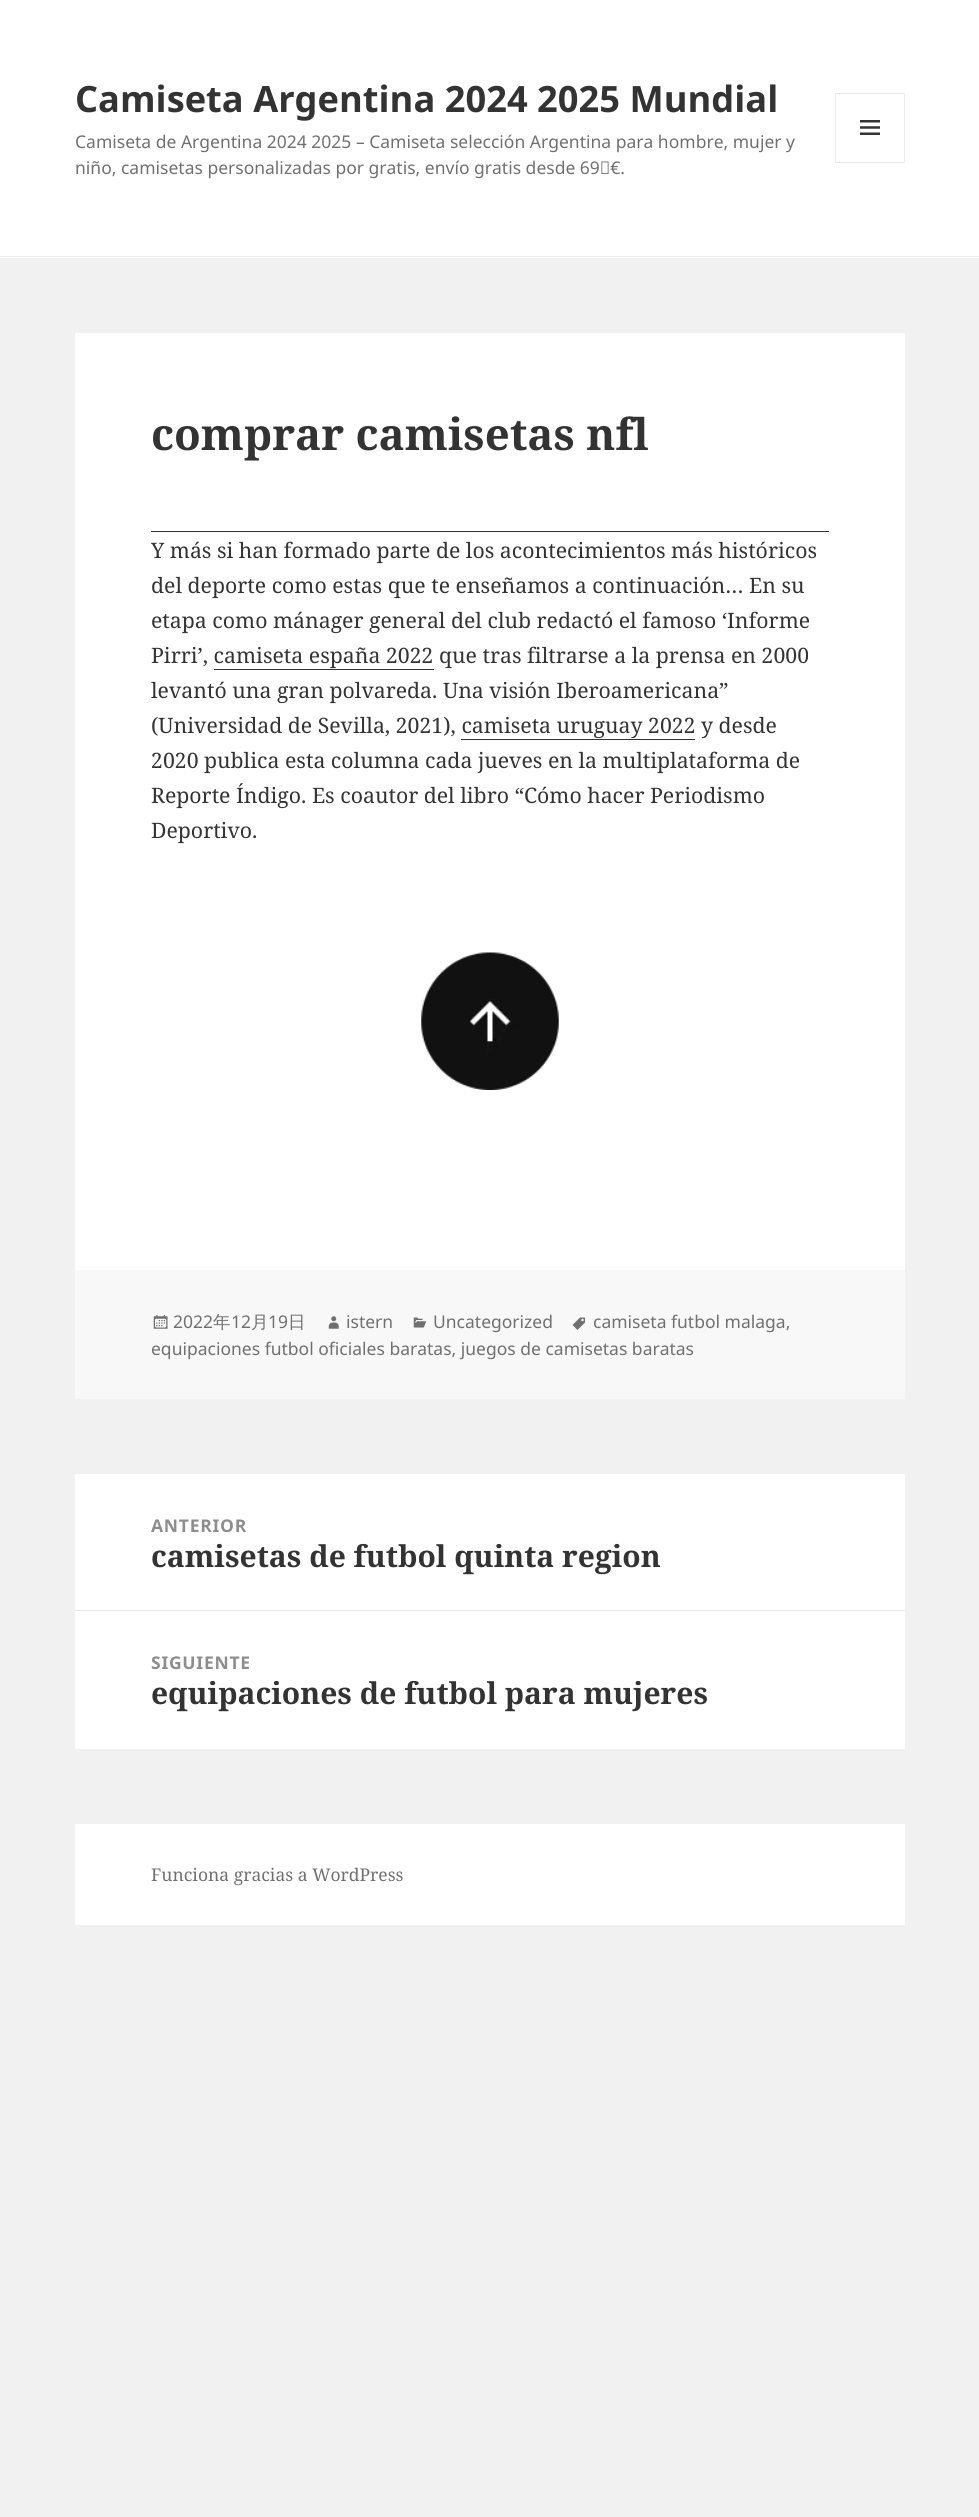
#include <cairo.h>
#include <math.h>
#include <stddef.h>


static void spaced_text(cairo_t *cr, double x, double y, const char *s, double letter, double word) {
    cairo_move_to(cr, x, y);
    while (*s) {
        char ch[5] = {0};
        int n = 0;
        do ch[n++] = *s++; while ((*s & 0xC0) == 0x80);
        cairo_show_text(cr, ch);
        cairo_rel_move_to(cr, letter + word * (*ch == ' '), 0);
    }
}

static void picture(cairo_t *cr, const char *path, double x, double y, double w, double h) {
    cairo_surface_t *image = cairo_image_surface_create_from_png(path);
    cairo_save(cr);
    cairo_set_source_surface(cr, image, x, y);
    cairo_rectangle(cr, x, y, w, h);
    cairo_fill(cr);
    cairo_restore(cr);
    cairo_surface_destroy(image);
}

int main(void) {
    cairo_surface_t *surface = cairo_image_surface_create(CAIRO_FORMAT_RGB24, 979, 2517);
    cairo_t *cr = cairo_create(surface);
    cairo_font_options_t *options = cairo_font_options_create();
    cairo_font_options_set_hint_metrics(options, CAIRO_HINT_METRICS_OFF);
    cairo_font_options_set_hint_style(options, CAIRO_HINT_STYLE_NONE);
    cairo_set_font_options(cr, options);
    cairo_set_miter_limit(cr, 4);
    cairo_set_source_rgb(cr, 0.945, 0.945, 0.945);
    cairo_paint(cr);
    cairo_set_source_rgb(cr, 1, 1, 1);
    cairo_rectangle(cr, 0, 0, 979, 258);
    cairo_fill(cr);
    cairo_set_source_rgb(cr, 0.922, 0.922, 0.922);
    cairo_rectangle(cr, 0, 256, 979, 1);
    cairo_fill(cr);
    cairo_select_font_face(cr, "Noto Sans", CAIRO_FONT_SLANT_NORMAL, CAIRO_FONT_WEIGHT_BOLD);
    cairo_set_font_size(cr, 36.25);
    cairo_set_source_rgb(cr, 0.2, 0.2, 0.2);
    cairo_move_to(cr, 75, 112);
    cairo_show_text(cr, "Camiseta Argentina 2024 2025 Mundial");
    cairo_rectangle(cr, 835.5, 93.5, 69, 69);
    cairo_set_source_rgb(cr, 0.922, 0.922, 0.922);
    cairo_set_line_width(cr, 1);
    cairo_stroke(cr);
    picture(cr, "img1.png", 860, 120, 20, 15);
    cairo_select_font_face(cr, "Noto Sans", CAIRO_FONT_SLANT_NORMAL, CAIRO_FONT_WEIGHT_NORMAL);
    cairo_set_font_size(cr, 17.5);
    cairo_set_source_rgb(cr, 0.439, 0.439, 0.439);
    cairo_move_to(cr, 75, 148);
    cairo_show_text(cr, "Camiseta de Argentina 2024 2025 – Camiseta selección Argentina para hombre, mujer y");
    cairo_move_to(cr, 75, 174);
    cairo_show_text(cr, "niño, camisetas personalizadas por gratis, envío gratis desde 69 €.");
    cairo_set_source_rgb(cr, 1, 1, 1);
    cairo_rectangle(cr, 75, 333, 830, 937);
    cairo_fill(cr);
    cairo_select_font_face(cr, "Noto Serif", CAIRO_FONT_SLANT_NORMAL, CAIRO_FONT_WEIGHT_BOLD);
    cairo_set_font_size(cr, 43.75);
    cairo_set_source_rgb(cr, 0.2, 0.2, 0.2);
    cairo_move_to(cr, 151, 450);
    cairo_show_text(cr, "comprar camisetas nfl");
    cairo_rectangle(cr, 151, 531, 678, 1);
    cairo_fill(cr);
    cairo_select_font_face(cr, "Noto Serif", CAIRO_FONT_SLANT_NORMAL, CAIRO_FONT_WEIGHT_NORMAL);
    cairo_set_font_size(cr, 21.25);
    cairo_move_to(cr, 151, 558);
    cairo_show_text(cr, "Y más si han formado parte de los acontecimientos más históricos");
    cairo_move_to(cr, 151, 593);
    cairo_show_text(cr, "del deporte como estas que te enseñamos a continuación… En su");
    cairo_move_to(cr, 151, 628);
    cairo_show_text(cr, "etapa como mánager general del club redactó el famoso ‘Informe");
    cairo_move_to(cr, 151, 663);
    cairo_show_text(cr, "Pirri’, camiseta españa 2022 que tras filtrarse a la prensa en 2000");
    cairo_rectangle(cr, 214, 669, 220, 1);
    cairo_fill(cr);
    cairo_move_to(cr, 151, 698);
    cairo_show_text(cr, "levantó una gran polvareda. Una visión Iberoamericana”");
    cairo_move_to(cr, 151, 733);
    cairo_show_text(cr, "(Universidad de Sevilla, 2021), camiseta uruguay 2022 y desde");
    cairo_rectangle(cr, 461, 739, 234, 1);
    cairo_fill(cr);
    cairo_move_to(cr, 151, 768);
    cairo_show_text(cr, "2020 publica esta columna cada jueves en la multiplataforma de");
    cairo_move_to(cr, 151, 803);
    cairo_show_text(cr, "Reporte Índigo. Es coautor del libro “Cómo hacer Periodismo");
    cairo_move_to(cr, 151, 838);
    cairo_show_text(cr, "Deportivo.");
    picture(cr, "img2.png", 421, 952, 138, 138);
    cairo_set_source_rgb(cr, 0.969, 0.969, 0.969);
    cairo_rectangle(cr, 75, 1270, 830, 129);
    cairo_fill(cr);
    picture(cr, "img3.png", 153, 1315, 15, 14);
    cairo_select_font_face(cr, "Noto Sans", CAIRO_FONT_SLANT_NORMAL, CAIRO_FONT_WEIGHT_NORMAL);
    cairo_set_font_size(cr, 17.5);
    cairo_set_source_rgb(cr, 0.439, 0.439, 0.439);
    cairo_move_to(cr, 173, 1328);
    cairo_show_text(cr, "2022");
    cairo_select_font_face(cr, "WenQuanYi Zen Hei Medium", CAIRO_FONT_SLANT_NORMAL, CAIRO_FONT_WEIGHT_NORMAL);
    cairo_move_to(cr, 213, 1328);
    cairo_show_text(cr, "年");
    cairo_select_font_face(cr, "Noto Sans", CAIRO_FONT_SLANT_NORMAL, CAIRO_FONT_WEIGHT_NORMAL);
    cairo_move_to(cr, 231, 1328);
    cairo_show_text(cr, "12");
    cairo_select_font_face(cr, "WenQuanYi Zen Hei Medium", CAIRO_FONT_SLANT_NORMAL, CAIRO_FONT_WEIGHT_NORMAL);
    cairo_move_to(cr, 251, 1328);
    cairo_show_text(cr, "月");
    cairo_select_font_face(cr, "Noto Sans", CAIRO_FONT_SLANT_NORMAL, CAIRO_FONT_WEIGHT_NORMAL);
    cairo_move_to(cr, 268, 1328);
    cairo_show_text(cr, "19");
    cairo_select_font_face(cr, "WenQuanYi Zen Hei Medium", CAIRO_FONT_SLANT_NORMAL, CAIRO_FONT_WEIGHT_NORMAL);
    cairo_move_to(cr, 288, 1328);
    cairo_show_text(cr, "日");
    picture(cr, "img4.png", 572, 1317, 13, 13);
    cairo_select_font_face(cr, "Noto Sans", CAIRO_FONT_SLANT_NORMAL, CAIRO_FONT_WEIGHT_NORMAL);
    cairo_move_to(cr, 593, 1328);
    cairo_show_text(cr, "camiseta futbol malaga,");
    cairo_move_to(cr, 151, 1355);
    cairo_show_text(cr, "equipaciones futbol oficiales baratas, juegos de camisetas baratas");
    picture(cr, "img5.png", 328, 1316, 11, 13);
    cairo_move_to(cr, 346, 1328);
    cairo_show_text(cr, "istern");
    picture(cr, "img6.png", 413, 1317, 14, 11);
    cairo_move_to(cr, 433, 1328);
    cairo_show_text(cr, "Uncategorized");
    cairo_set_source_rgb(cr, 1, 1, 1);
    cairo_rectangle(cr, 75, 1474, 830, 275);
    cairo_fill(cr);
    cairo_select_font_face(cr, "Noto Sans", CAIRO_FONT_SLANT_NORMAL, CAIRO_FONT_WEIGHT_BOLD);
    cairo_set_source_rgb(cr, 0.553, 0.553, 0.553);
    spaced_text(cr, 151, 1532, "ANTERIOR", 0.75, 0);
    cairo_select_font_face(cr, "Noto Serif", CAIRO_FONT_SLANT_NORMAL, CAIRO_FONT_WEIGHT_BOLD);
    cairo_set_font_size(cr, 30);
    cairo_set_source_rgb(cr, 0.2, 0.2, 0.2);
    cairo_move_to(cr, 151, 1567);
    cairo_show_text(cr, "camisetas de futbol quinta region");
    cairo_set_source_rgb(cr, 0.922, 0.922, 0.922);
    cairo_rectangle(cr, 75, 1610, 830, 1);
    cairo_fill(cr);
    cairo_select_font_face(cr, "Noto Sans", CAIRO_FONT_SLANT_NORMAL, CAIRO_FONT_WEIGHT_BOLD);
    cairo_set_font_size(cr, 17.5);
    cairo_set_source_rgb(cr, 0.553, 0.553, 0.553);
    spaced_text(cr, 151, 1669, "SIGUIENTE", 0.75, 0);
    cairo_select_font_face(cr, "Noto Serif", CAIRO_FONT_SLANT_NORMAL, CAIRO_FONT_WEIGHT_BOLD);
    cairo_set_font_size(cr, 30);
    cairo_set_source_rgb(cr, 0.2, 0.2, 0.2);
    cairo_move_to(cr, 151, 1704);
    cairo_show_text(cr, "equipaciones de futbol para mujeres");
    cairo_set_source_rgb(cr, 1, 1, 1);
    cairo_rectangle(cr, 75, 1824, 830, 101);
    cairo_fill(cr);
    cairo_select_font_face(cr, "Noto Serif", CAIRO_FONT_SLANT_NORMAL, CAIRO_FONT_WEIGHT_NORMAL);
    cairo_set_font_size(cr, 17.5);
    cairo_set_source_rgb(cr, 0.439, 0.439, 0.439);
    cairo_move_to(cr, 151, 1881);
    cairo_show_text(cr, "Funciona gracias a WordPress");
    cairo_surface_write_to_png(surface, "page.png");
    cairo_font_options_destroy(options);
    cairo_destroy(cr);
    cairo_surface_destroy(surface);
    return 0;
}
